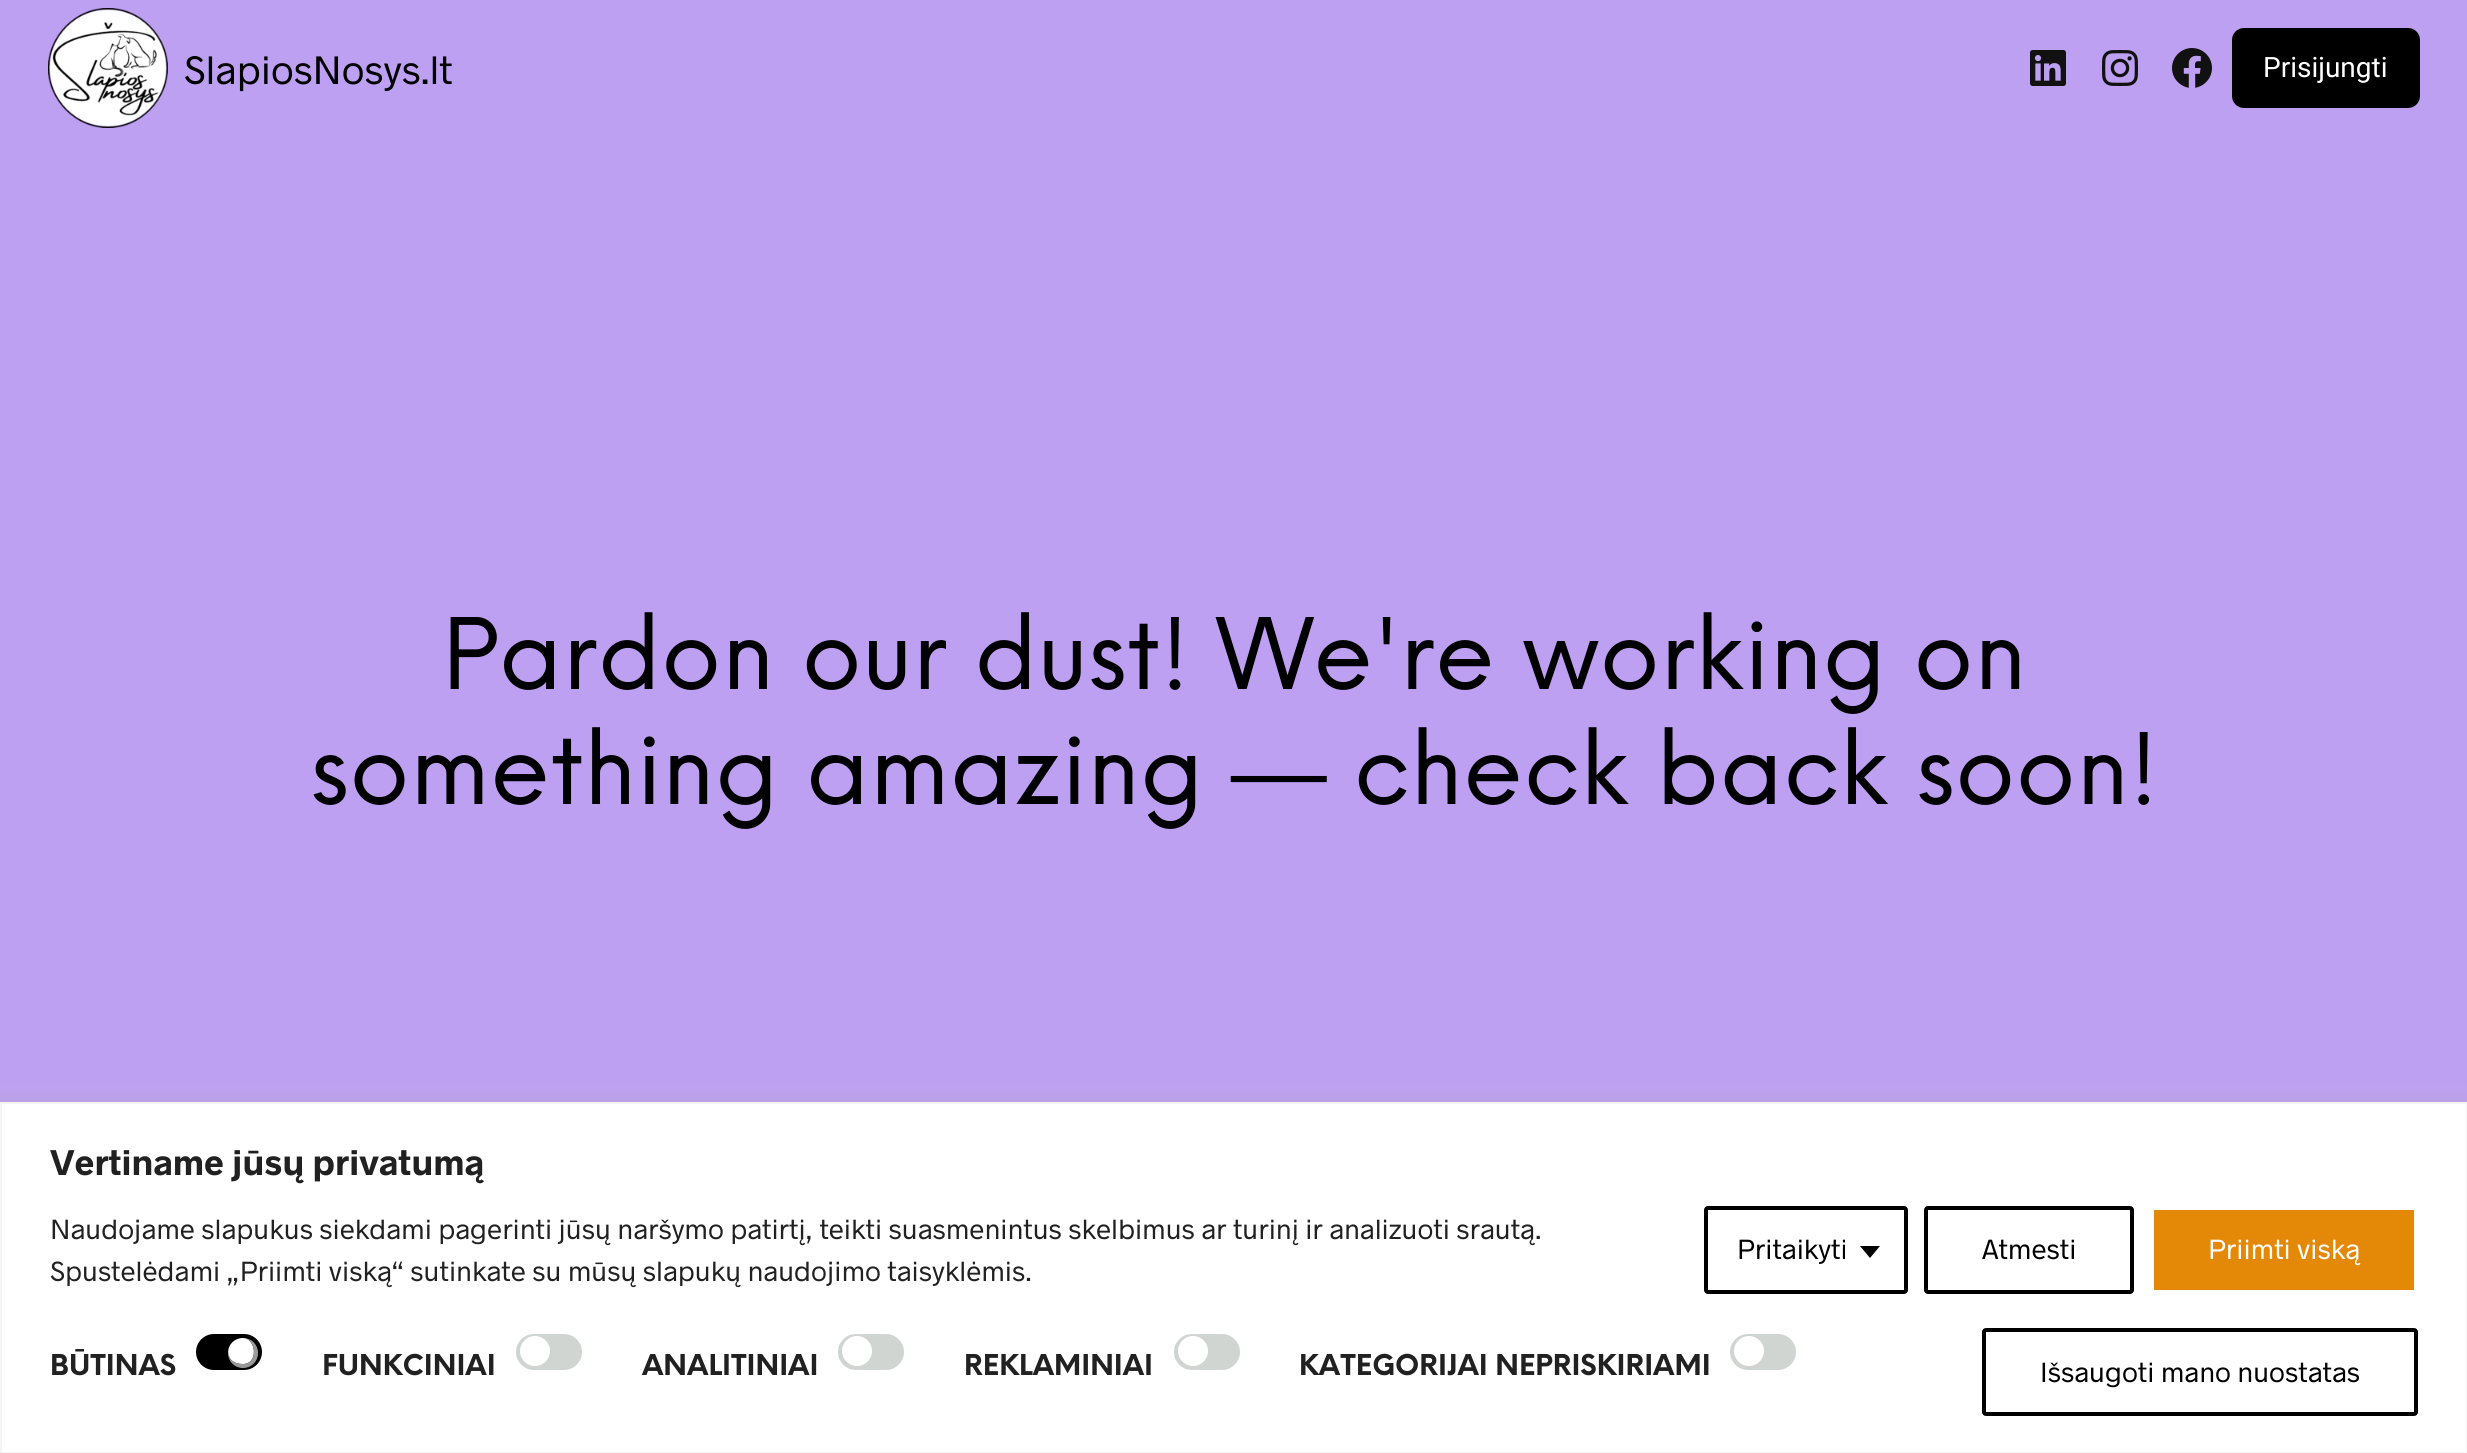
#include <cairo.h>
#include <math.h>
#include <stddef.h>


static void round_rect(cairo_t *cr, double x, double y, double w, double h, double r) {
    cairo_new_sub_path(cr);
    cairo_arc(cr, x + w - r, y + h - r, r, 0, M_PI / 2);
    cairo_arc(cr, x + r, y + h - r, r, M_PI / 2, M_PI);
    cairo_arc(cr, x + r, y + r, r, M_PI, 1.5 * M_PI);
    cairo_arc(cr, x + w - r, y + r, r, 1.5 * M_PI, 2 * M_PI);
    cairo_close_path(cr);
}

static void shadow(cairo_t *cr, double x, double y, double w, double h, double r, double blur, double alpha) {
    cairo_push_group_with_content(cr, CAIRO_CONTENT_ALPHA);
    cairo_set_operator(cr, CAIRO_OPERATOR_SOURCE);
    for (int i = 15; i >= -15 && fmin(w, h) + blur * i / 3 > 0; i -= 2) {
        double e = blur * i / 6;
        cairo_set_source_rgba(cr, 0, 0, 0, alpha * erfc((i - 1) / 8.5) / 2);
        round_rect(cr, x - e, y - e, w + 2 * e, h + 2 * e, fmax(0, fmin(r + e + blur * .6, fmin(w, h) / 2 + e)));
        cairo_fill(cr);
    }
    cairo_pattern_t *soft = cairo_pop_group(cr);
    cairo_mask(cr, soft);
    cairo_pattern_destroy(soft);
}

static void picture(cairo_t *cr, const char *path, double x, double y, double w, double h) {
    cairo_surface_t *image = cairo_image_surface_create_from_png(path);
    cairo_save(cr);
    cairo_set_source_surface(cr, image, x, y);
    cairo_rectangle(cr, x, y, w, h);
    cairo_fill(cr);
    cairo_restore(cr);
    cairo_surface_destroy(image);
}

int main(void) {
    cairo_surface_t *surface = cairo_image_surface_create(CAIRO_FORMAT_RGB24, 2467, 1453);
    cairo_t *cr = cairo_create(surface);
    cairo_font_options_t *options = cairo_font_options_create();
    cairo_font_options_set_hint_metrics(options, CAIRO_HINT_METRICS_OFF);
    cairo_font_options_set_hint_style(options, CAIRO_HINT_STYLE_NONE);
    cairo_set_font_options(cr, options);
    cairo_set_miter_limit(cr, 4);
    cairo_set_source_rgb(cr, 0.745, 0.627, 0.949);
    cairo_paint(cr);
    picture(cr, "img1.png", 48, 8, 120, 120);
    cairo_select_font_face(cr, "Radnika", CAIRO_FONT_SLANT_NORMAL, CAIRO_FONT_WEIGHT_NORMAL);
    cairo_set_font_size(cr, 40);
    cairo_set_source_rgb(cr, 0, 0, 0);
    cairo_move_to(cr, 184, 84);
    cairo_show_text(cr, "SlapiosNosys.lt");
    picture(cr, "img2.png", 2030, 50, 36, 36);
    picture(cr, "img3.png", 2102, 50, 36, 36);
    picture(cr, "img4.png", 2172, 48, 40, 40);
    round_rect(cr, 2232, 28, 188, 80, 12);
    cairo_fill(cr);
    cairo_select_font_face(cr, "Roboto", CAIRO_FONT_SLANT_NORMAL, CAIRO_FONT_WEIGHT_NORMAL);
    cairo_set_font_size(cr, 28);
    cairo_set_source_rgb(cr, 1, 1, 1);
    cairo_move_to(cr, 2263, 77);
    cairo_show_text(cr, "Prisijungti");
    cairo_select_font_face(cr, "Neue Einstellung", CAIRO_FONT_SLANT_NORMAL, CAIRO_FONT_WEIGHT_NORMAL);
    cairo_set_font_size(cr, 96);
    cairo_set_source_rgb(cr, 0, 0, 0);
    cairo_move_to(cr, 442, 689);
    cairo_show_text(cr, "Pardon our dust! We're working on");
    cairo_move_to(cr, 310, 804);
    cairo_show_text(cr, "something amazing — check back soon!");
    cairo_set_source_rgb(cr, 0.675, 0.671, 0.671);
    shadow(cr, 0, 1100, 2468, 352, 0, 10, 0.3);
    cairo_set_source_rgb(cr, 1, 1, 1);
    cairo_rectangle(cr, 1, 1103, 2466, 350);
    cairo_fill_preserve(cr);
    cairo_set_source_rgb(cr, 0.957, 0.957, 0.957);
    cairo_stroke(cr);
    cairo_select_font_face(cr, "Radnika", CAIRO_FONT_SLANT_NORMAL, CAIRO_FONT_WEIGHT_BOLD);
    cairo_set_font_size(cr, 36);
    cairo_set_source_rgb(cr, 0.129, 0.129, 0.129);
    cairo_move_to(cr, 50, 1175);
    cairo_show_text(cr, "Vertiname jūsų privatumą");
    cairo_select_font_face(cr, "Radnika", CAIRO_FONT_SLANT_NORMAL, CAIRO_FONT_WEIGHT_NORMAL);
    cairo_set_font_size(cr, 28);
    cairo_move_to(cr, 50, 1239);
    cairo_show_text(cr, "Naudojame slapukus siekdami pagerinti jūsų naršymo patirtį, teikti suasmenintus skelbimus ar turinį ir analizuoti srautą.");
    cairo_move_to(cr, 50, 1281);
    cairo_show_text(cr, "Spustelėdami „Priimti viską“ sutinkate su mūsų slapukų naudojimo taisyklėmis.");
    round_rect(cr, 1706, 1208, 200, 84, 2);
    cairo_set_source_rgb(cr, 0, 0, 0);
    cairo_set_line_width(cr, 4);
    cairo_stroke(cr);
    cairo_move_to(cr, 1737, 1259);
    cairo_show_text(cr, "Pritaikyti");
    cairo_new_path(cr);
    cairo_move_to(cr, 1860, 1246);
    cairo_line_to(cr, 1880, 1246);
    cairo_line_to(cr, 1870, 1258);
    cairo_close_path(cr);
    cairo_fill(cr);
    round_rect(cr, 1926, 1208, 206, 84, 2);
    cairo_stroke(cr);
    cairo_move_to(cr, 1982, 1259);
    cairo_show_text(cr, "Atmesti");
    cairo_set_source_rgb(cr, 0.89, 0.537, 0.031);
    round_rect(cr, 2152, 1208, 264, 84, 2);
    cairo_fill_preserve(cr);
    cairo_set_source_rgb(cr, 1, 1, 1);
    cairo_stroke(cr);
    cairo_move_to(cr, 2208, 1259);
    cairo_show_text(cr, "Priimti viską");
    cairo_select_font_face(cr, "Neue Einstellung", CAIRO_FONT_SLANT_NORMAL, CAIRO_FONT_WEIGHT_BOLD);
    cairo_set_source_rgb(cr, 0.129, 0.129, 0.129);
    cairo_move_to(cr, 50, 1375);
    cairo_show_text(cr, "BŪTINAS");
    cairo_set_source_rgb(cr, 0, 0, 0);
    round_rect(cr, 196, 1334, 66, 36, 18);
    cairo_fill(cr);
    cairo_set_source_rgb(cr, 1, 1, 1);
    cairo_new_path(cr);
    cairo_move_to(cr, 243, 1338);
    cairo_curve_to(cr, 256, 1338, 259, 1364, 243, 1364);
    cairo_curve_to(cr, 221, 1364, 225.5, 1338, 243, 1338);
    cairo_close_path(cr);
    cairo_fill(cr);
    cairo_set_source_rgb(cr, 0.6, 0.6, 0.6);
    cairo_set_fill_rule(cr, CAIRO_FILL_RULE_EVEN_ODD);
    cairo_new_path(cr);
    cairo_move_to(cr, 243, 1338);
    cairo_curve_to(cr, 251.5, 1338, 258, 1344.5, 258, 1353);
    cairo_curve_to(cr, 258, 1361.5, 251.5, 1368, 243, 1368);
    cairo_curve_to(cr, 234.5, 1368, 228, 1361.5, 228, 1353);
    cairo_curve_to(cr, 228, 1344.5, 234.5, 1338, 243, 1338);
    cairo_close_path(cr);
    cairo_move_to(cr, 243, 1338);
    cairo_curve_to(cr, 256, 1338, 259, 1364, 243, 1364);
    cairo_curve_to(cr, 221, 1364, 225.5, 1338, 243, 1338);
    cairo_close_path(cr);
    cairo_fill(cr);
    cairo_set_source_rgb(cr, 0.129, 0.129, 0.129);
    cairo_move_to(cr, 322, 1375);
    cairo_show_text(cr, "FUNKCINIAI");
    cairo_set_source_rgb(cr, 0.816, 0.835, 0.824);
    round_rect(cr, 516, 1334, 66, 36, 18);
    cairo_fill(cr);
    cairo_set_source_rgb(cr, 1, 1, 1);
    cairo_arc(cr, 535, 1351, 15, 0, 2 * M_PI);
    cairo_fill(cr);
    cairo_set_source_rgb(cr, 0.129, 0.129, 0.129);
    cairo_move_to(cr, 642, 1375);
    cairo_show_text(cr, "ANALITINIAI");
    cairo_set_source_rgb(cr, 0.816, 0.835, 0.824);
    round_rect(cr, 838, 1334, 66, 36, 18);
    cairo_fill(cr);
    cairo_set_source_rgb(cr, 1, 1, 1);
    cairo_arc(cr, 857, 1351, 15, 0, 2 * M_PI);
    cairo_fill(cr);
    cairo_set_source_rgb(cr, 0.129, 0.129, 0.129);
    cairo_move_to(cr, 964, 1375);
    cairo_show_text(cr, "REKLAMINIAI");
    cairo_set_source_rgb(cr, 0.816, 0.835, 0.824);
    round_rect(cr, 1174, 1334, 66, 36, 18);
    cairo_fill(cr);
    cairo_set_source_rgb(cr, 1, 1, 1);
    cairo_arc(cr, 1193, 1351, 15, 0, 2 * M_PI);
    cairo_fill(cr);
    cairo_set_source_rgb(cr, 0.129, 0.129, 0.129);
    cairo_move_to(cr, 1299, 1375);
    cairo_show_text(cr, "KATEGORIJAI NEPRISKIRIAMI");
    cairo_set_source_rgb(cr, 0.816, 0.835, 0.824);
    round_rect(cr, 1730, 1334, 66, 36, 18);
    cairo_fill(cr);
    cairo_set_source_rgb(cr, 1, 1, 1);
    cairo_arc(cr, 1749, 1351, 15, 0, 2 * M_PI);
    cairo_fill(cr);
    round_rect(cr, 1984, 1330, 432, 84, 2);
    cairo_set_source_rgb(cr, 0, 0, 0);
    cairo_stroke(cr);
    cairo_select_font_face(cr, "Radnika", CAIRO_FONT_SLANT_NORMAL, CAIRO_FONT_WEIGHT_NORMAL);
    cairo_move_to(cr, 2040, 1382);
    cairo_show_text(cr, "Išsaugoti mano nuostatas");
    cairo_surface_write_to_png(surface, "page.png");
    cairo_font_options_destroy(options);
    cairo_destroy(cr);
    cairo_surface_destroy(surface);
    return 0;
}
